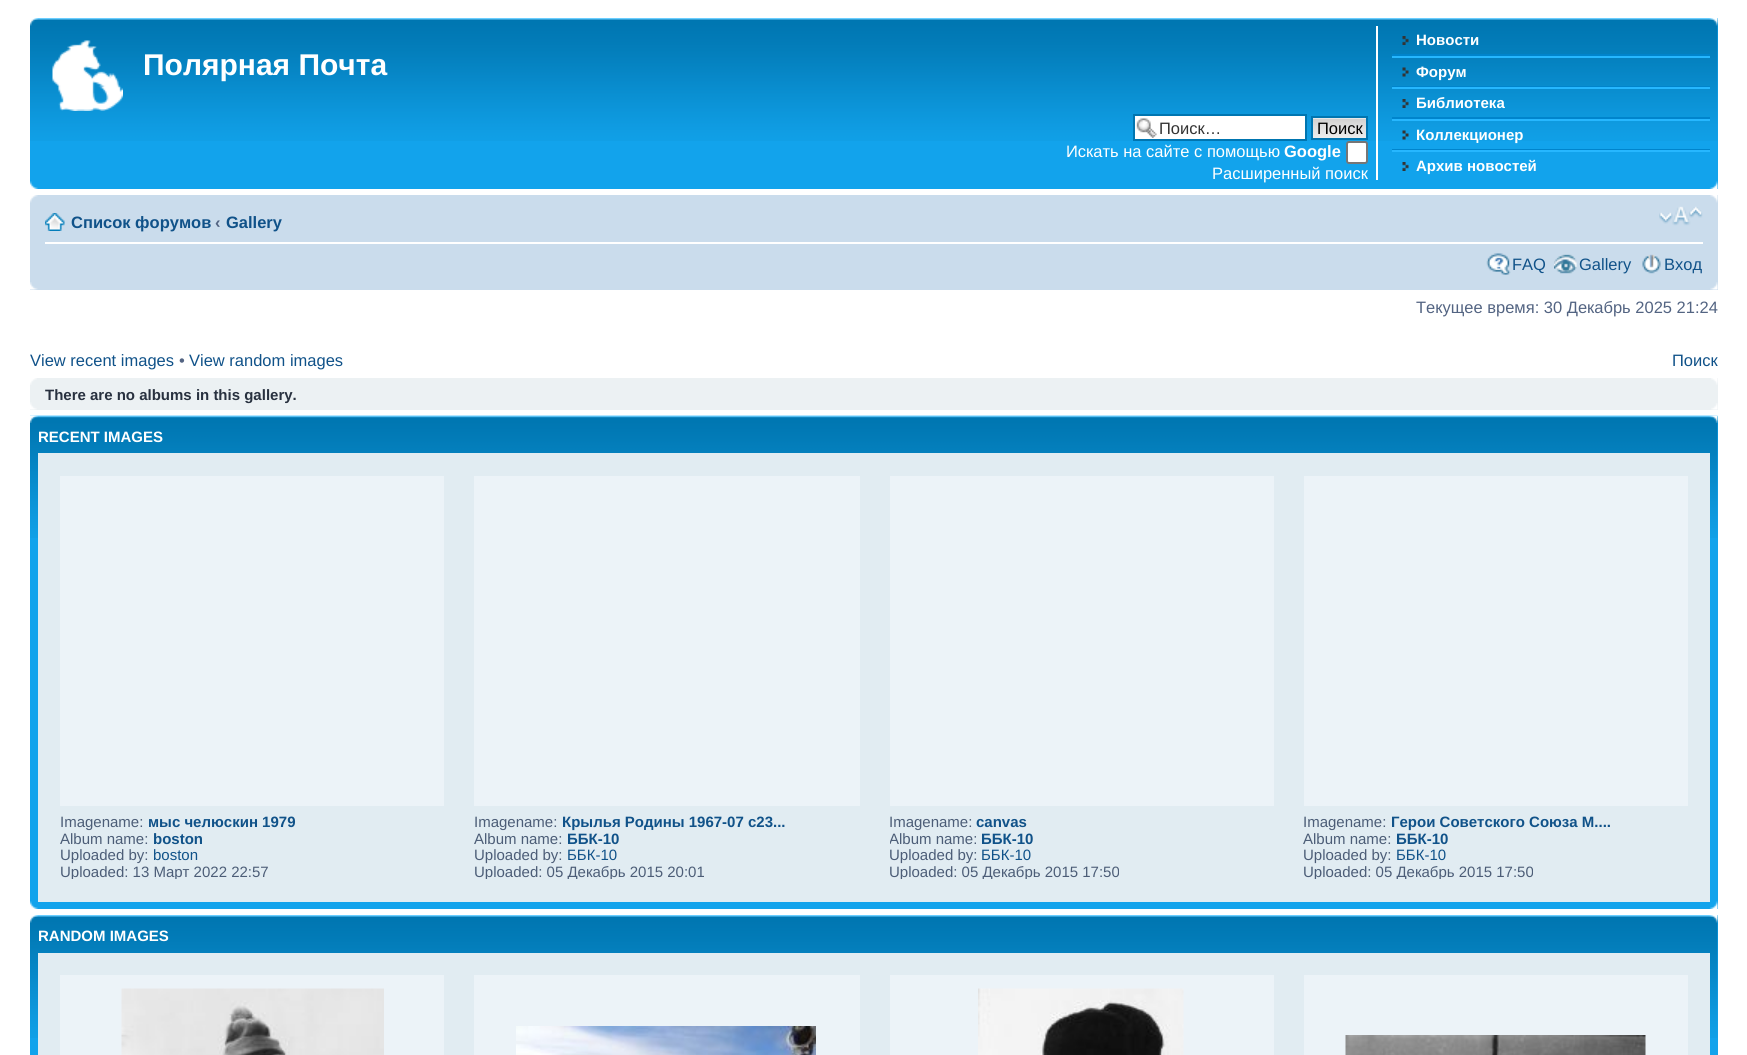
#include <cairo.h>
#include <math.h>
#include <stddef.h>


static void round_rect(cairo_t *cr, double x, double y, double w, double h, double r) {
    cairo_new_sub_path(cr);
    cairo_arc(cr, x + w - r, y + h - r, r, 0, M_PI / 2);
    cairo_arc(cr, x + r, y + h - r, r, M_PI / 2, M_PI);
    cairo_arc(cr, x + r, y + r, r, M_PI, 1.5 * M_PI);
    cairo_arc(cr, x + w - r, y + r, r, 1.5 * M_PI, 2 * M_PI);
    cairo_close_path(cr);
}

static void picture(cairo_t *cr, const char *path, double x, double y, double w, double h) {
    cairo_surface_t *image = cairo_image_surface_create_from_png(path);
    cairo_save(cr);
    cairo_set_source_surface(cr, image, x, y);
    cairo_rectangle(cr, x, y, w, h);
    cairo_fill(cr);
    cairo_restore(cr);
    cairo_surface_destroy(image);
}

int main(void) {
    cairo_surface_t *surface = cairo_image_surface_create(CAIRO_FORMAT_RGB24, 1747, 1055);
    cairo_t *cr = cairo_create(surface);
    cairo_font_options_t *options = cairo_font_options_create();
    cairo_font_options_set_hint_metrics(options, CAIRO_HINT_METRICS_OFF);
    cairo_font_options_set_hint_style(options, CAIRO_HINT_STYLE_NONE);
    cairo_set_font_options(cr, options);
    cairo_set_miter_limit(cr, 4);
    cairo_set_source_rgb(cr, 1, 1, 1);
    cairo_paint(cr);
    cairo_set_source_rgb(cr, 0.071, 0.639, 0.922);
    cairo_rectangle(cr, 30, 18, 1688, 171);
    cairo_fill(cr);
    picture(cr, "img1.png", 30, 18, 1688, 123);
    picture(cr, "img2.png", 30, 18, 8, 8);
    picture(cr, "img3.png", 1709, 18, 9, 8);
    picture(cr, "img4.png", 52, 40, 71, 71);
    cairo_select_font_face(cr, "Liberation Sans", CAIRO_FONT_SLANT_NORMAL, CAIRO_FONT_WEIGHT_BOLD);
    cairo_set_font_size(cr, 30);
    cairo_set_source_rgb(cr, 1, 1, 1);
    cairo_move_to(cr, 143, 75);
    cairo_show_text(cr, "Полярная Почта");
    cairo_rectangle(cr, 1376, 26, 2, 154);
    cairo_fill(cr);
    cairo_set_source_rgb(cr, 0, 0.518, 0.8);
    cairo_rectangle(cr, 1392, 54, 318, 2);
    cairo_fill(cr);
    picture(cr, "img5.png", 1402, 36, 7, 9);
    cairo_set_font_size(cr, 15);
    cairo_set_source_rgb(cr, 1, 1, 1);
    cairo_move_to(cr, 1416, 45);
    cairo_show_text(cr, "Новости");
    cairo_set_source_rgb(cr, 0.149, 0.718, 1);
    cairo_rectangle(cr, 1392, 56, 318, 2);
    cairo_fill(cr);
    cairo_set_source_rgb(cr, 0, 0.518, 0.8);
    cairo_rectangle(cr, 1392, 86, 318, 1);
    cairo_fill(cr);
    picture(cr, "img6.png", 1402, 67, 7, 10);
    cairo_set_source_rgb(cr, 1, 1, 1);
    cairo_move_to(cr, 1416, 77);
    cairo_show_text(cr, "Форум");
    cairo_set_source_rgb(cr, 0.149, 0.718, 1);
    cairo_rectangle(cr, 1392, 87, 318, 2);
    cairo_fill(cr);
    cairo_set_source_rgb(cr, 0, 0.518, 0.8);
    cairo_rectangle(cr, 1392, 117, 318, 2);
    cairo_fill(cr);
    picture(cr, "img7.png", 1402, 99, 7, 9);
    cairo_set_source_rgb(cr, 1, 1, 1);
    cairo_move_to(cr, 1416, 108);
    cairo_show_text(cr, "Библиотека");
    cairo_set_source_rgb(cr, 0.149, 0.718, 1);
    cairo_rectangle(cr, 1392, 119, 318, 2);
    cairo_fill(cr);
    cairo_set_source_rgb(cr, 0, 0.518, 0.8);
    cairo_rectangle(cr, 1392, 149, 318, 1);
    cairo_fill(cr);
    picture(cr, "img8.png", 1402, 130, 7, 10);
    cairo_set_source_rgb(cr, 1, 1, 1);
    cairo_move_to(cr, 1416, 140);
    cairo_show_text(cr, "Коллекционер");
    cairo_set_source_rgb(cr, 0.149, 0.718, 1);
    cairo_rectangle(cr, 1392, 150, 318, 2);
    cairo_fill(cr);
    picture(cr, "img9.png", 1402, 162, 7, 9);
    cairo_set_source_rgb(cr, 1, 1, 1);
    cairo_move_to(cr, 1416, 171);
    cairo_show_text(cr, "Архив новостей");
    cairo_rectangle(cr, 1135, 116, 170, 23);
    cairo_fill(cr);
    picture(cr, "img10.png", 1136, 118, 21, 20);
    cairo_rectangle(cr, 1134, 115, 172, 25);
    cairo_set_source_rgb(cr, 0, 0.459, 0.69);
    cairo_stroke(cr);
    cairo_select_font_face(cr, "Liberation Sans", CAIRO_FONT_SLANT_NORMAL, CAIRO_FONT_WEIGHT_NORMAL);
    cairo_set_font_size(cr, 16.5);
    cairo_set_source_rgb(cr, 0.2, 0.2, 0.2);
    cairo_move_to(cr, 1159, 134);
    cairo_show_text(cr, "Поиск…");
    picture(cr, "img11.png", 1313, 118, 53, 20);
    cairo_rectangle(cr, 1312, 117, 55, 22);
    cairo_set_source_rgb(cr, 0, 0.459, 0.69);
    cairo_stroke(cr);
    cairo_set_source_rgb(cr, 0, 0, 0);
    cairo_move_to(cr, 1317, 134);
    cairo_show_text(cr, "Поиск");
    cairo_set_source_rgb(cr, 1, 1, 1);
    cairo_move_to(cr, 1066, 157);
    cairo_show_text(cr, "Искать на сайте с помощью");
    cairo_select_font_face(cr, "Liberation Sans", CAIRO_FONT_SLANT_NORMAL, CAIRO_FONT_WEIGHT_BOLD);
    cairo_move_to(cr, 1284, 157);
    cairo_show_text(cr, "Google");
    round_rect(cr, 1347, 142, 20, 21, 2);
    cairo_fill_preserve(cr);
    cairo_set_source_rgb(cr, 0.463, 0.463, 0.463);
    cairo_stroke(cr);
    cairo_select_font_face(cr, "Liberation Sans", CAIRO_FONT_SLANT_NORMAL, CAIRO_FONT_WEIGHT_NORMAL);
    cairo_set_source_rgb(cr, 1, 1, 1);
    cairo_move_to(cr, 1212, 179);
    cairo_show_text(cr, "Расширенный поиск");
    picture(cr, "img12.png", 30, 181, 8, 8);
    picture(cr, "img13.png", 1709, 181, 9, 8);
    cairo_set_source_rgb(cr, 0.792, 0.863, 0.922);
    cairo_rectangle(cr, 30, 195, 1688, 95);
    cairo_fill(cr);
    picture(cr, "img14.png", 30, 195, 8, 8);
    picture(cr, "img15.png", 1710, 195, 8, 8);
    cairo_set_source_rgb(cr, 1, 1, 1);
    cairo_rectangle(cr, 45, 242, 1658, 2);
    cairo_fill(cr);
    picture(cr, "img16.png", 45, 213, 20, 18);
    cairo_select_font_face(cr, "Liberation Sans", CAIRO_FONT_SLANT_NORMAL, CAIRO_FONT_WEIGHT_BOLD);
    cairo_set_source_rgb(cr, 0.063, 0.322, 0.537);
    cairo_move_to(cr, 71, 228);
    cairo_show_text(cr, "Список форумов");
    cairo_set_source_rgb(cr, 0.325, 0.392, 0.51);
    cairo_move_to(cr, 215, 228);
    cairo_show_text(cr, "‹");
    cairo_set_source_rgb(cr, 0.063, 0.322, 0.537);
    cairo_move_to(cr, 226, 228);
    cairo_show_text(cr, "Gallery");
    picture(cr, "img17.png", 1659, 206, 44, 20);
    picture(cr, "img18.png", 1486, 253, 25, 22);
    cairo_select_font_face(cr, "Liberation Sans", CAIRO_FONT_SLANT_NORMAL, CAIRO_FONT_WEIGHT_NORMAL);
    cairo_move_to(cr, 1512, 270);
    cairo_show_text(cr, "FAQ");
    picture(cr, "img19.png", 1554, 254, 23, 20);
    cairo_move_to(cr, 1579, 270);
    cairo_show_text(cr, "Gallery");
    picture(cr, "img20.png", 1642, 254, 19, 20);
    cairo_move_to(cr, 1664, 270);
    cairo_show_text(cr, "Вход");
    picture(cr, "img21.png", 30, 282, 8, 8);
    picture(cr, "img22.png", 1710, 282, 8, 8);
    cairo_set_source_rgb(cr, 0.325, 0.392, 0.51);
    cairo_move_to(cr, 1416, 313);
    cairo_show_text(cr, "Текущее время: 30 Декабрь 2025 21:24");
    cairo_set_source_rgb(cr, 0.063, 0.322, 0.537);
    cairo_move_to(cr, 30, 366);
    cairo_show_text(cr, "View recent images");
    cairo_set_source_rgb(cr, 0.325, 0.392, 0.51);
    cairo_move_to(cr, 179, 366);
    cairo_show_text(cr, "•");
    cairo_set_source_rgb(cr, 0.063, 0.322, 0.537);
    cairo_move_to(cr, 189, 366);
    cairo_show_text(cr, "View random images");
    cairo_move_to(cr, 1672, 366);
    cairo_show_text(cr, "Поиск");
    cairo_set_source_rgb(cr, 0.925, 0.945, 0.953);
    cairo_rectangle(cr, 30, 378, 1688, 32);
    cairo_fill(cr);
    picture(cr, "img23.png", 30, 378, 7, 7);
    picture(cr, "img24.png", 1711, 378, 7, 7);
    cairo_select_font_face(cr, "Liberation Sans", CAIRO_FONT_SLANT_NORMAL, CAIRO_FONT_WEIGHT_BOLD);
    cairo_set_font_size(cr, 15);
    cairo_set_source_rgb(cr, 0.157, 0.192, 0.247);
    cairo_move_to(cr, 45, 400);
    cairo_show_text(cr, "There are no albums in this gallery.");
    picture(cr, "img25.png", 30, 402, 7, 8);
    picture(cr, "img26.png", 1711, 403, 7, 7);
    cairo_set_source_rgb(cr, 0.071, 0.639, 0.922);
    cairo_rectangle(cr, 30, 416, 1688, 493);
    cairo_fill(cr);
    picture(cr, "img27.png", 30, 415, 1688, 123);
    picture(cr, "img28.png", 30, 415, 8, 8);
    picture(cr, "img29.png", 1709, 415, 9, 8);
    cairo_set_source_rgb(cr, 1, 1, 1);
    cairo_move_to(cr, 38, 442);
    cairo_show_text(cr, "RECENT IMAGES");
    cairo_set_source_rgb(cr, 0.882, 0.922, 0.949);
    cairo_rectangle(cr, 38, 453, 1672, 449);
    cairo_fill(cr);
    cairo_set_source_rgb(cr, 0.925, 0.953, 0.969);
    cairo_rectangle(cr, 60, 476, 384, 330);
    cairo_fill(cr);
    cairo_select_font_face(cr, "Liberation Sans", CAIRO_FONT_SLANT_NORMAL, CAIRO_FONT_WEIGHT_NORMAL);
    cairo_set_source_rgb(cr, 0.298, 0.365, 0.467);
    cairo_move_to(cr, 60, 827);
    cairo_show_text(cr, "Imagename:");
    cairo_select_font_face(cr, "Liberation Sans", CAIRO_FONT_SLANT_NORMAL, CAIRO_FONT_WEIGHT_BOLD);
    cairo_set_source_rgb(cr, 0.063, 0.322, 0.537);
    cairo_move_to(cr, 148, 827);
    cairo_show_text(cr, "мыс челюскин 1979");
    cairo_select_font_face(cr, "Liberation Sans", CAIRO_FONT_SLANT_NORMAL, CAIRO_FONT_WEIGHT_NORMAL);
    cairo_set_source_rgb(cr, 0.298, 0.365, 0.467);
    cairo_move_to(cr, 60, 844);
    cairo_show_text(cr, "Album name:");
    cairo_select_font_face(cr, "Liberation Sans", CAIRO_FONT_SLANT_NORMAL, CAIRO_FONT_WEIGHT_BOLD);
    cairo_set_source_rgb(cr, 0.063, 0.322, 0.537);
    cairo_move_to(cr, 153, 844);
    cairo_show_text(cr, "boston");
    cairo_select_font_face(cr, "Liberation Sans", CAIRO_FONT_SLANT_NORMAL, CAIRO_FONT_WEIGHT_NORMAL);
    cairo_set_source_rgb(cr, 0.298, 0.365, 0.467);
    cairo_move_to(cr, 60, 860);
    cairo_show_text(cr, "Uploaded by:");
    cairo_set_source_rgb(cr, 0.063, 0.322, 0.537);
    cairo_move_to(cr, 153, 860);
    cairo_show_text(cr, "boston");
    cairo_save(cr);
    cairo_rectangle(cr, 60, 813, 384, 66);
    cairo_clip(cr);
    cairo_set_source_rgb(cr, 0.298, 0.365, 0.467);
    cairo_move_to(cr, 60, 877);
    cairo_show_text(cr, "Uploaded: 13 Март 2022 22:57");
    cairo_restore(cr);
    cairo_set_source_rgb(cr, 0.925, 0.953, 0.969);
    cairo_rectangle(cr, 474, 476, 386, 330);
    cairo_fill(cr);
    cairo_set_source_rgb(cr, 0.298, 0.365, 0.467);
    cairo_move_to(cr, 474, 827);
    cairo_show_text(cr, "Imagename:");
    cairo_select_font_face(cr, "Liberation Sans", CAIRO_FONT_SLANT_NORMAL, CAIRO_FONT_WEIGHT_BOLD);
    cairo_set_source_rgb(cr, 0.063, 0.322, 0.537);
    cairo_move_to(cr, 562, 827);
    cairo_show_text(cr, "Крылья Родины 1967-07 с23...");
    cairo_select_font_face(cr, "Liberation Sans", CAIRO_FONT_SLANT_NORMAL, CAIRO_FONT_WEIGHT_NORMAL);
    cairo_set_source_rgb(cr, 0.298, 0.365, 0.467);
    cairo_move_to(cr, 474, 844);
    cairo_show_text(cr, "Album name:");
    cairo_select_font_face(cr, "Liberation Sans", CAIRO_FONT_SLANT_NORMAL, CAIRO_FONT_WEIGHT_BOLD);
    cairo_set_source_rgb(cr, 0.063, 0.322, 0.537);
    cairo_move_to(cr, 567, 844);
    cairo_show_text(cr, "ББК-10");
    cairo_select_font_face(cr, "Liberation Sans", CAIRO_FONT_SLANT_NORMAL, CAIRO_FONT_WEIGHT_NORMAL);
    cairo_set_source_rgb(cr, 0.298, 0.365, 0.467);
    cairo_move_to(cr, 474, 860);
    cairo_show_text(cr, "Uploaded by:");
    cairo_set_source_rgb(cr, 0.063, 0.322, 0.537);
    cairo_move_to(cr, 567, 860);
    cairo_show_text(cr, "ББК-10");
    cairo_save(cr);
    cairo_rectangle(cr, 474, 813, 386, 66);
    cairo_clip(cr);
    cairo_set_source_rgb(cr, 0.298, 0.365, 0.467);
    cairo_move_to(cr, 474, 877);
    cairo_show_text(cr, "Uploaded: 05 Декабрь 2015 20:01");
    cairo_restore(cr);
    cairo_set_source_rgb(cr, 0.925, 0.953, 0.969);
    cairo_rectangle(cr, 890, 476, 384, 330);
    cairo_fill(cr);
    cairo_set_source_rgb(cr, 0.298, 0.365, 0.467);
    cairo_move_to(cr, 889, 827);
    cairo_show_text(cr, "Imagename:");
    cairo_select_font_face(cr, "Liberation Sans", CAIRO_FONT_SLANT_NORMAL, CAIRO_FONT_WEIGHT_BOLD);
    cairo_set_source_rgb(cr, 0.063, 0.322, 0.537);
    cairo_move_to(cr, 976, 827);
    cairo_show_text(cr, "canvas");
    cairo_save(cr);
    cairo_rectangle(cr, 890, 813, 384, 66);
    cairo_clip(cr);
    cairo_select_font_face(cr, "Liberation Sans", CAIRO_FONT_SLANT_NORMAL, CAIRO_FONT_WEIGHT_NORMAL);
    cairo_set_source_rgb(cr, 0.298, 0.365, 0.467);
    cairo_move_to(cr, 889, 844);
    cairo_show_text(cr, "Album name:");
    cairo_restore(cr);
    cairo_move_to(cr, 981, 844);
    cairo_show_text(cr, "ББК-10");
    cairo_save(cr);
    cairo_rectangle(cr, 890, 813, 384, 66);
    cairo_clip(cr);
    cairo_select_font_face(cr, "Liberation Sans", CAIRO_FONT_SLANT_NORMAL, CAIRO_FONT_WEIGHT_NORMAL);
    cairo_set_source_rgb(cr, 0.298, 0.365, 0.467);
    cairo_move_to(cr, 889, 860);
    cairo_show_text(cr, "Uploaded by:");
    cairo_restore(cr);
    cairo_select_font_face(cr, "Liberation Sans", CAIRO_FONT_SLANT_NORMAL, CAIRO_FONT_WEIGHT_NORMAL);
    cairo_move_to(cr, 981, 860);
    cairo_show_text(cr, "ББК-10");
    cairo_save(cr);
    cairo_rectangle(cr, 890, 813, 384, 66);
    cairo_clip(cr);
    cairo_set_source_rgb(cr, 0.298, 0.365, 0.467);
    cairo_move_to(cr, 889, 877);
    cairo_show_text(cr, "Uploaded: 05 Декабрь 2015 17:50");
    cairo_restore(cr);
    cairo_set_source_rgb(cr, 0.925, 0.953, 0.969);
    cairo_rectangle(cr, 1304, 476, 384, 330);
    cairo_fill(cr);
    cairo_set_source_rgb(cr, 0.298, 0.365, 0.467);
    cairo_move_to(cr, 1303, 827);
    cairo_show_text(cr, "Imagename:");
    cairo_select_font_face(cr, "Liberation Sans", CAIRO_FONT_SLANT_NORMAL, CAIRO_FONT_WEIGHT_BOLD);
    cairo_set_source_rgb(cr, 0.063, 0.322, 0.537);
    cairo_move_to(cr, 1391, 827);
    cairo_show_text(cr, "Герои Советского Союза М....");
    cairo_select_font_face(cr, "Liberation Sans", CAIRO_FONT_SLANT_NORMAL, CAIRO_FONT_WEIGHT_NORMAL);
    cairo_set_source_rgb(cr, 0.298, 0.365, 0.467);
    cairo_move_to(cr, 1303, 844);
    cairo_show_text(cr, "Album name:");
    cairo_select_font_face(cr, "Liberation Sans", CAIRO_FONT_SLANT_NORMAL, CAIRO_FONT_WEIGHT_BOLD);
    cairo_set_source_rgb(cr, 0.063, 0.322, 0.537);
    cairo_move_to(cr, 1396, 844);
    cairo_show_text(cr, "ББК-10");
    cairo_select_font_face(cr, "Liberation Sans", CAIRO_FONT_SLANT_NORMAL, CAIRO_FONT_WEIGHT_NORMAL);
    cairo_set_source_rgb(cr, 0.298, 0.365, 0.467);
    cairo_move_to(cr, 1303, 860);
    cairo_show_text(cr, "Uploaded by:");
    cairo_set_source_rgb(cr, 0.063, 0.322, 0.537);
    cairo_move_to(cr, 1396, 860);
    cairo_show_text(cr, "ББК-10");
    cairo_save(cr);
    cairo_rectangle(cr, 1304, 813, 384, 66);
    cairo_clip(cr);
    cairo_set_source_rgb(cr, 0.298, 0.365, 0.467);
    cairo_move_to(cr, 1303, 877);
    cairo_show_text(cr, "Uploaded: 05 Декабрь 2015 17:50");
    cairo_restore(cr);
    picture(cr, "img12.png", 30, 901, 8, 8);
    picture(cr, "img30.png", 1709, 901, 9, 8);
    cairo_set_source_rgb(cr, 0.071, 0.639, 0.922);
    cairo_rectangle(cr, 30, 915, 1688, 140);
    cairo_fill(cr);
    picture(cr, "img31.png", 30, 915, 1688, 123);
    picture(cr, "img32.png", 30, 915, 8, 8);
    picture(cr, "img33.png", 1709, 915, 9, 8);
    cairo_select_font_face(cr, "Liberation Sans", CAIRO_FONT_SLANT_NORMAL, CAIRO_FONT_WEIGHT_BOLD);
    cairo_set_source_rgb(cr, 1, 1, 1);
    cairo_move_to(cr, 38, 941);
    cairo_show_text(cr, "RANDOM IMAGES");
    cairo_set_source_rgb(cr, 0.882, 0.922, 0.949);
    cairo_rectangle(cr, 38, 953, 1672, 102);
    cairo_fill(cr);
    cairo_set_source_rgb(cr, 0.925, 0.953, 0.969);
    cairo_rectangle(cr, 60, 975, 384, 80);
    cairo_fill(cr);
    picture(cr, "img34.png", 121, 988, 263, 67);
    cairo_rectangle(cr, 474, 975, 386, 80);
    cairo_fill(cr);
    picture(cr, "img35.png", 516, 1026, 300, 29);
    cairo_rectangle(cr, 890, 975, 384, 80);
    cairo_fill(cr);
    picture(cr, "img36.png", 978, 988, 206, 67);
    cairo_rectangle(cr, 1304, 975, 384, 80);
    cairo_fill(cr);
    picture(cr, "img37.png", 1345, 1035, 301, 20);
    cairo_surface_write_to_png(surface, "page.png");
    cairo_font_options_destroy(options);
    cairo_destroy(cr);
    cairo_surface_destroy(surface);
    return 0;
}
